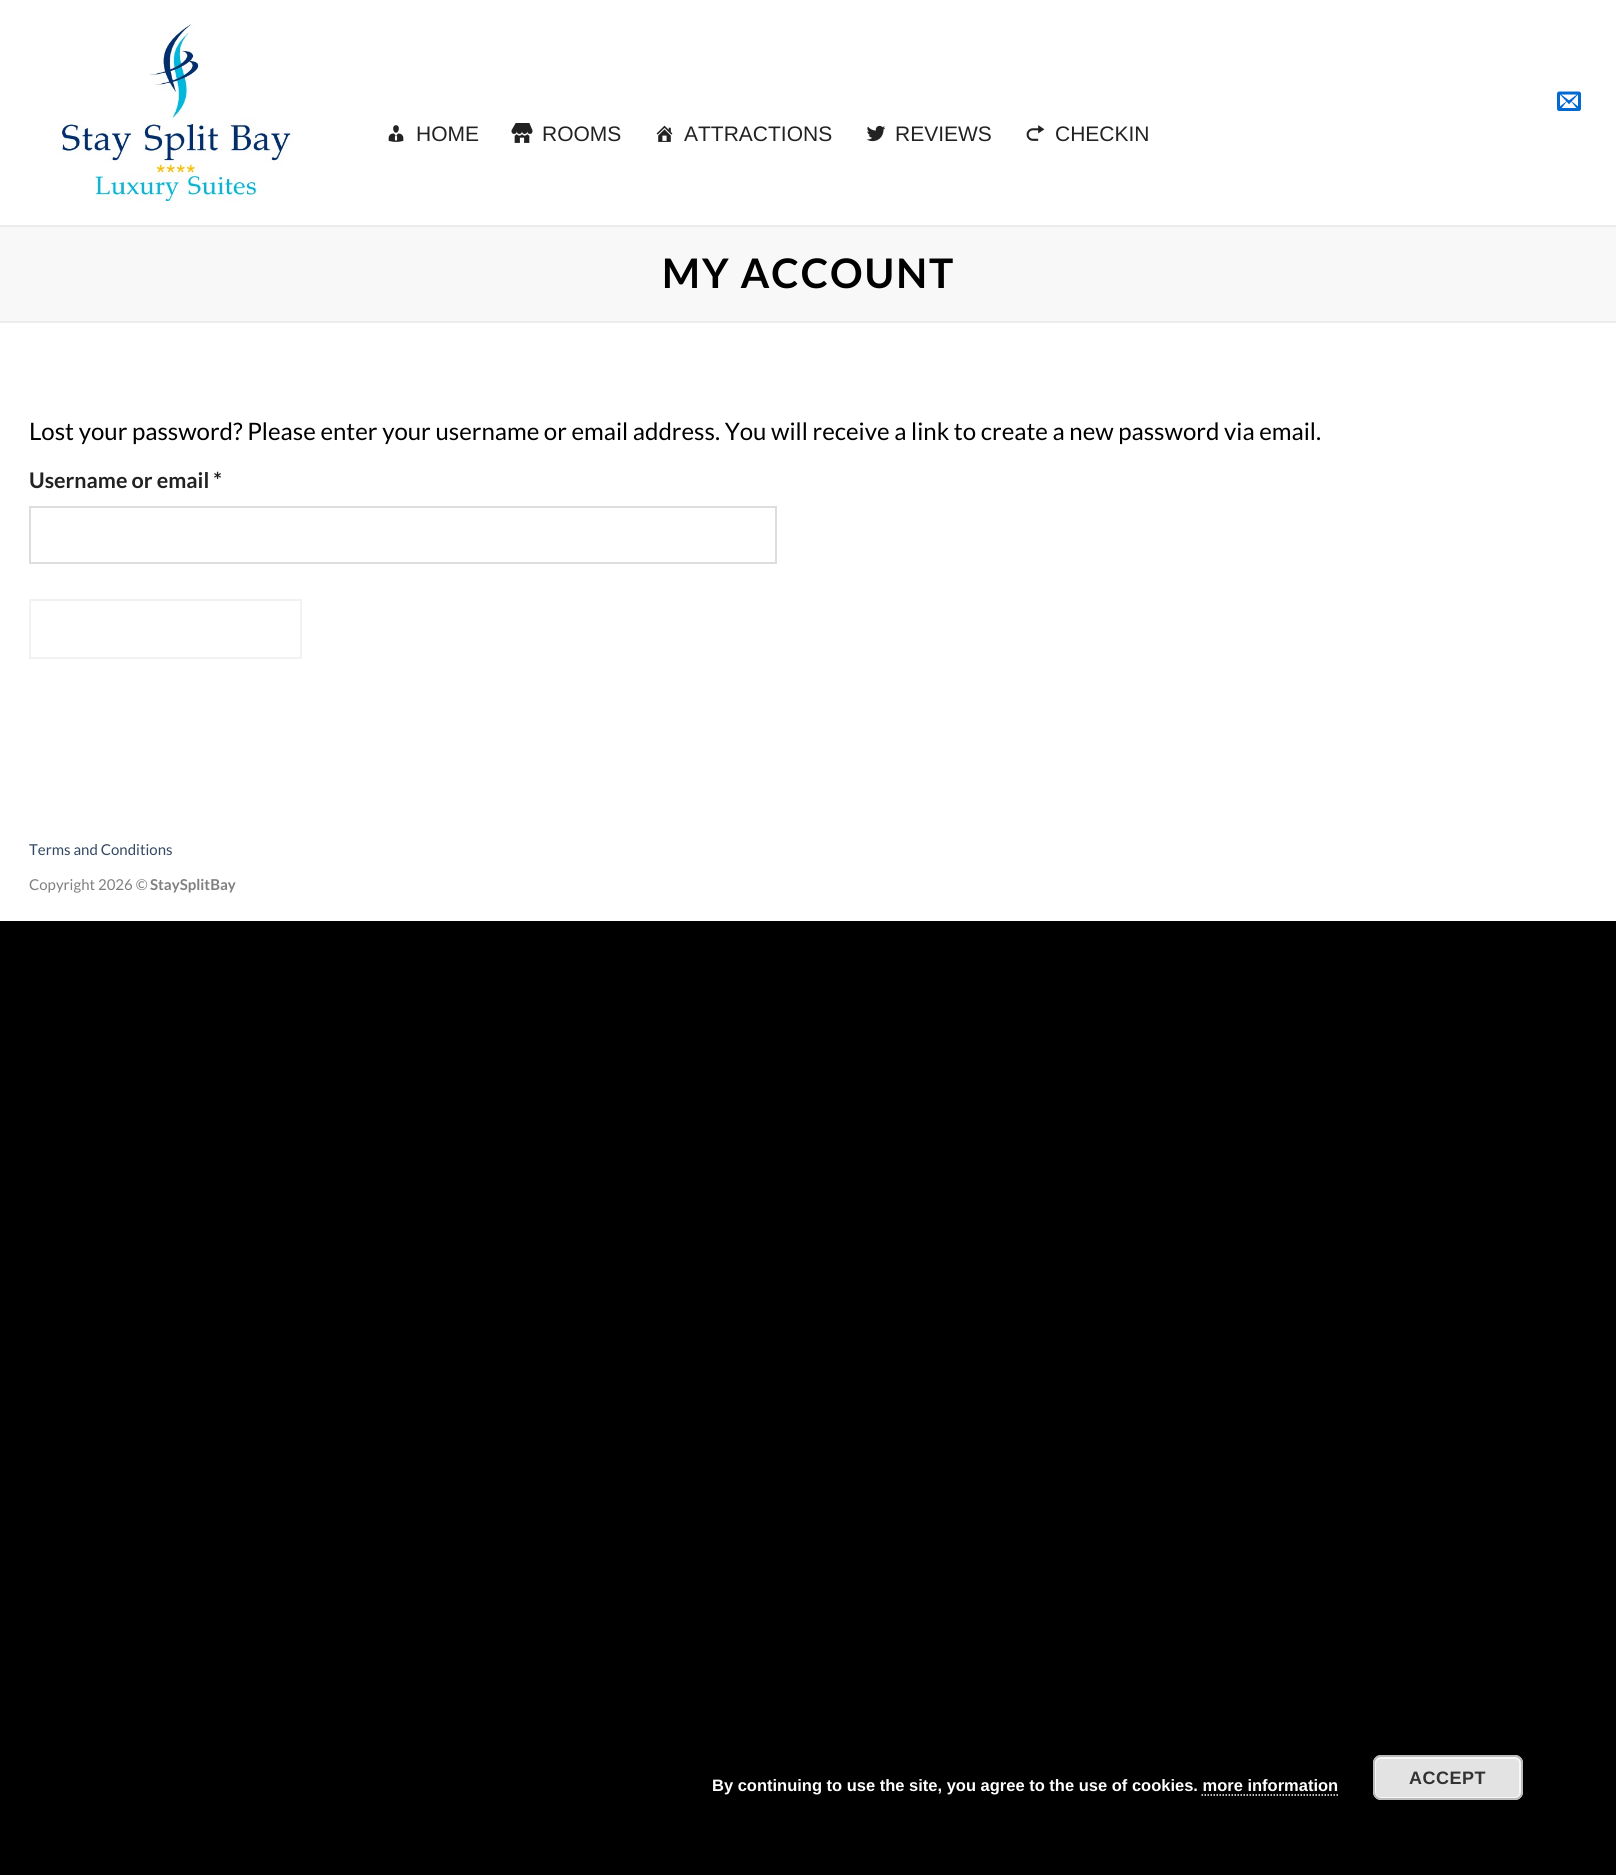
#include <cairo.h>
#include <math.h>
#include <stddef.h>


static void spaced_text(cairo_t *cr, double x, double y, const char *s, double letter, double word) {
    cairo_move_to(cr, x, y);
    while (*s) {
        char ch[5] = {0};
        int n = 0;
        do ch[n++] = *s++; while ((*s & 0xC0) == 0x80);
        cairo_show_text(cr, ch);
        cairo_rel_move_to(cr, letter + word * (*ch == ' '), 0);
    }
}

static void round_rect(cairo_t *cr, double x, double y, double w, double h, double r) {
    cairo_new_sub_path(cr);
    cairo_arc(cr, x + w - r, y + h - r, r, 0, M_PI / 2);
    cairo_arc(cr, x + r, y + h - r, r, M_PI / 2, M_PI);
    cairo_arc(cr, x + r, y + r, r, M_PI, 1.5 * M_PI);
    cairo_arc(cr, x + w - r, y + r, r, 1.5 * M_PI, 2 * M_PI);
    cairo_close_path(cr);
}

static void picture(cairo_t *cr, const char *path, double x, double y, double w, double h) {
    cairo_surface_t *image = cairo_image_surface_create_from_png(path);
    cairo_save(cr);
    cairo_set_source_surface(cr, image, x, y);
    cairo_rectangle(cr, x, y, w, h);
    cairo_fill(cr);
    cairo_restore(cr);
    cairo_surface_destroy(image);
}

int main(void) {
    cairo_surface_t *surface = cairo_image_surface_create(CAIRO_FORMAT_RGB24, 1616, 1875);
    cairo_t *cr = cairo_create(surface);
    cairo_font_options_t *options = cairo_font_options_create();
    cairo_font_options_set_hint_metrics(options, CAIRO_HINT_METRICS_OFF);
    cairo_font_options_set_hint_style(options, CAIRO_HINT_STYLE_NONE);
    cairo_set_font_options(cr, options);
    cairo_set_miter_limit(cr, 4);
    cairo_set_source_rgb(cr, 0, 0, 0);
    cairo_paint(cr);
    cairo_set_source_rgb(cr, 1, 1, 1);
    cairo_rectangle(cr, 0, 0, 1616, 921);
    cairo_fill(cr);
    picture(cr, "img1.png", 57, 24, 236, 177);
    picture(cr, "img2.png", 1557, 91, 24, 20);
    picture(cr, "img3.png", 388, 125, 16, 17);
    cairo_select_font_face(cr, "Liberation Sans", CAIRO_FONT_SLANT_NORMAL, CAIRO_FONT_WEIGHT_NORMAL);
    cairo_set_font_size(cr, 21);
    cairo_set_source_rgb(cr, 0.133, 0.133, 0.133);
    cairo_move_to(cr, 416, 141);
    cairo_show_text(cr, "HOME");
    picture(cr, "img4.png", 511, 123, 22, 20);
    cairo_move_to(cr, 542, 141);
    cairo_show_text(cr, "ROOMS");
    picture(cr, "img5.png", 656, 125, 17, 17);
    cairo_move_to(cr, 684, 141);
    cairo_show_text(cr, "ATTRACTIONS");
    picture(cr, "img6.png", 866, 125, 20, 17);
    cairo_move_to(cr, 895, 141);
    cairo_show_text(cr, "REVIEWS");
    picture(cr, "img7.png", 1026, 125, 19, 16);
    cairo_move_to(cr, 1055, 141);
    cairo_show_text(cr, "CHECKIN");
    cairo_set_source_rgb(cr, 0.969, 0.969, 0.969);
    cairo_rectangle(cr, 0, 227, 1616, 94);
    cairo_fill(cr);
    cairo_set_source_rgb(cr, 0.925, 0.925, 0.925);
    cairo_rectangle(cr, 0, 225, 1616, 2);
    cairo_fill(cr);
    cairo_rectangle(cr, 0, 321, 1616, 2);
    cairo_fill(cr);
    cairo_select_font_face(cr, "Lato", CAIRO_FONT_SLANT_NORMAL, CAIRO_FONT_WEIGHT_BOLD);
    cairo_set_font_size(cr, 40.75);
    cairo_set_source_rgb(cr, 0, 0, 0);
    spaced_text(cr, 662, 288, "MY ACCOUNT", 2, 0);
    cairo_select_font_face(cr, "Lato", CAIRO_FONT_SLANT_NORMAL, CAIRO_FONT_WEIGHT_NORMAL);
    cairo_set_font_size(cr, 24);
    cairo_move_to(cr, 29, 440);
    cairo_show_text(cr, "Lost your password? Please enter your username or email address. You will receive a link to create a new password via email.");
    cairo_select_font_face(cr, "Lato", CAIRO_FONT_SLANT_NORMAL, CAIRO_FONT_WEIGHT_BOLD);
    cairo_set_font_size(cr, 21.5);
    cairo_set_source_rgb(cr, 0.133, 0.133, 0.133);
    cairo_move_to(cr, 29, 488);
    cairo_show_text(cr, "Username or email *");
    cairo_rectangle(cr, 30, 507, 746, 56);
    cairo_set_source_rgb(cr, 0.867, 0.867, 0.867);
    cairo_stroke(cr);
    cairo_rectangle(cr, 30, 600, 271, 58);
    cairo_set_source_rgb(cr, 0.949, 0.949, 0.949);
    cairo_stroke(cr);
    cairo_select_font_face(cr, "Lato", CAIRO_FONT_SLANT_NORMAL, CAIRO_FONT_WEIGHT_NORMAL);
    cairo_set_font_size(cr, 15);
    cairo_set_source_rgb(cr, 0.2, 0.282, 0.384);
    cairo_move_to(cr, 29, 855);
    cairo_show_text(cr, "Terms and Conditions");
    cairo_set_source_rgb(cr, 0.502, 0.502, 0.502);
    cairo_move_to(cr, 29, 890);
    cairo_show_text(cr, "Copyright 2026 ©");
    cairo_select_font_face(cr, "Lato", CAIRO_FONT_SLANT_NORMAL, CAIRO_FONT_WEIGHT_BOLD);
    cairo_move_to(cr, 150, 890);
    cairo_show_text(cr, "StaySplitBay");
    cairo_select_font_face(cr, "Liberation Sans", CAIRO_FONT_SLANT_NORMAL, CAIRO_FONT_WEIGHT_BOLD);
    cairo_set_font_size(cr, 16.5);
    cairo_set_source_rgb(cr, 1, 1, 1);
    cairo_move_to(cr, 712, 1791);
    cairo_show_text(cr, "By continuing to use the site, you agree to the use of cookies. more information");
    cairo_set_source_rgb(cr, 0.89, 0.89, 0.89);
    round_rect(cr, 1373, 1755, 150, 45, 8);
    cairo_fill(cr);
    round_rect(cr, 1375, 1758, 145, 40, 5);
    cairo_set_source_rgb(cr, 0.965, 0.965, 0.965);
    cairo_stroke(cr);
    round_rect(cr, 1374, 1756, 148, 43, 7);
    cairo_set_source_rgb(cr, 0.733, 0.733, 0.733);
    cairo_stroke(cr);
    cairo_set_font_size(cr, 18);
    cairo_set_source_rgb(cr, 0.2, 0.2, 0.2);
    spaced_text(cr, 1409, 1784, "ACCEPT", 0.5, 0);
    cairo_new_path(cr);
    cairo_move_to(cr, 1201.5, 1795);
    cairo_line_to(cr, 1338, 1795);
    cairo_set_source_rgb(cr, 1, 1, 1);
    cairo_set_line_width(cr, 1.5);
    cairo_set_dash(cr, (double[]){1.5, 1.5}, 2, 0);
    cairo_stroke(cr);
    cairo_surface_write_to_png(surface, "page.png");
    cairo_font_options_destroy(options);
    cairo_destroy(cr);
    cairo_surface_destroy(surface);
    return 0;
}
